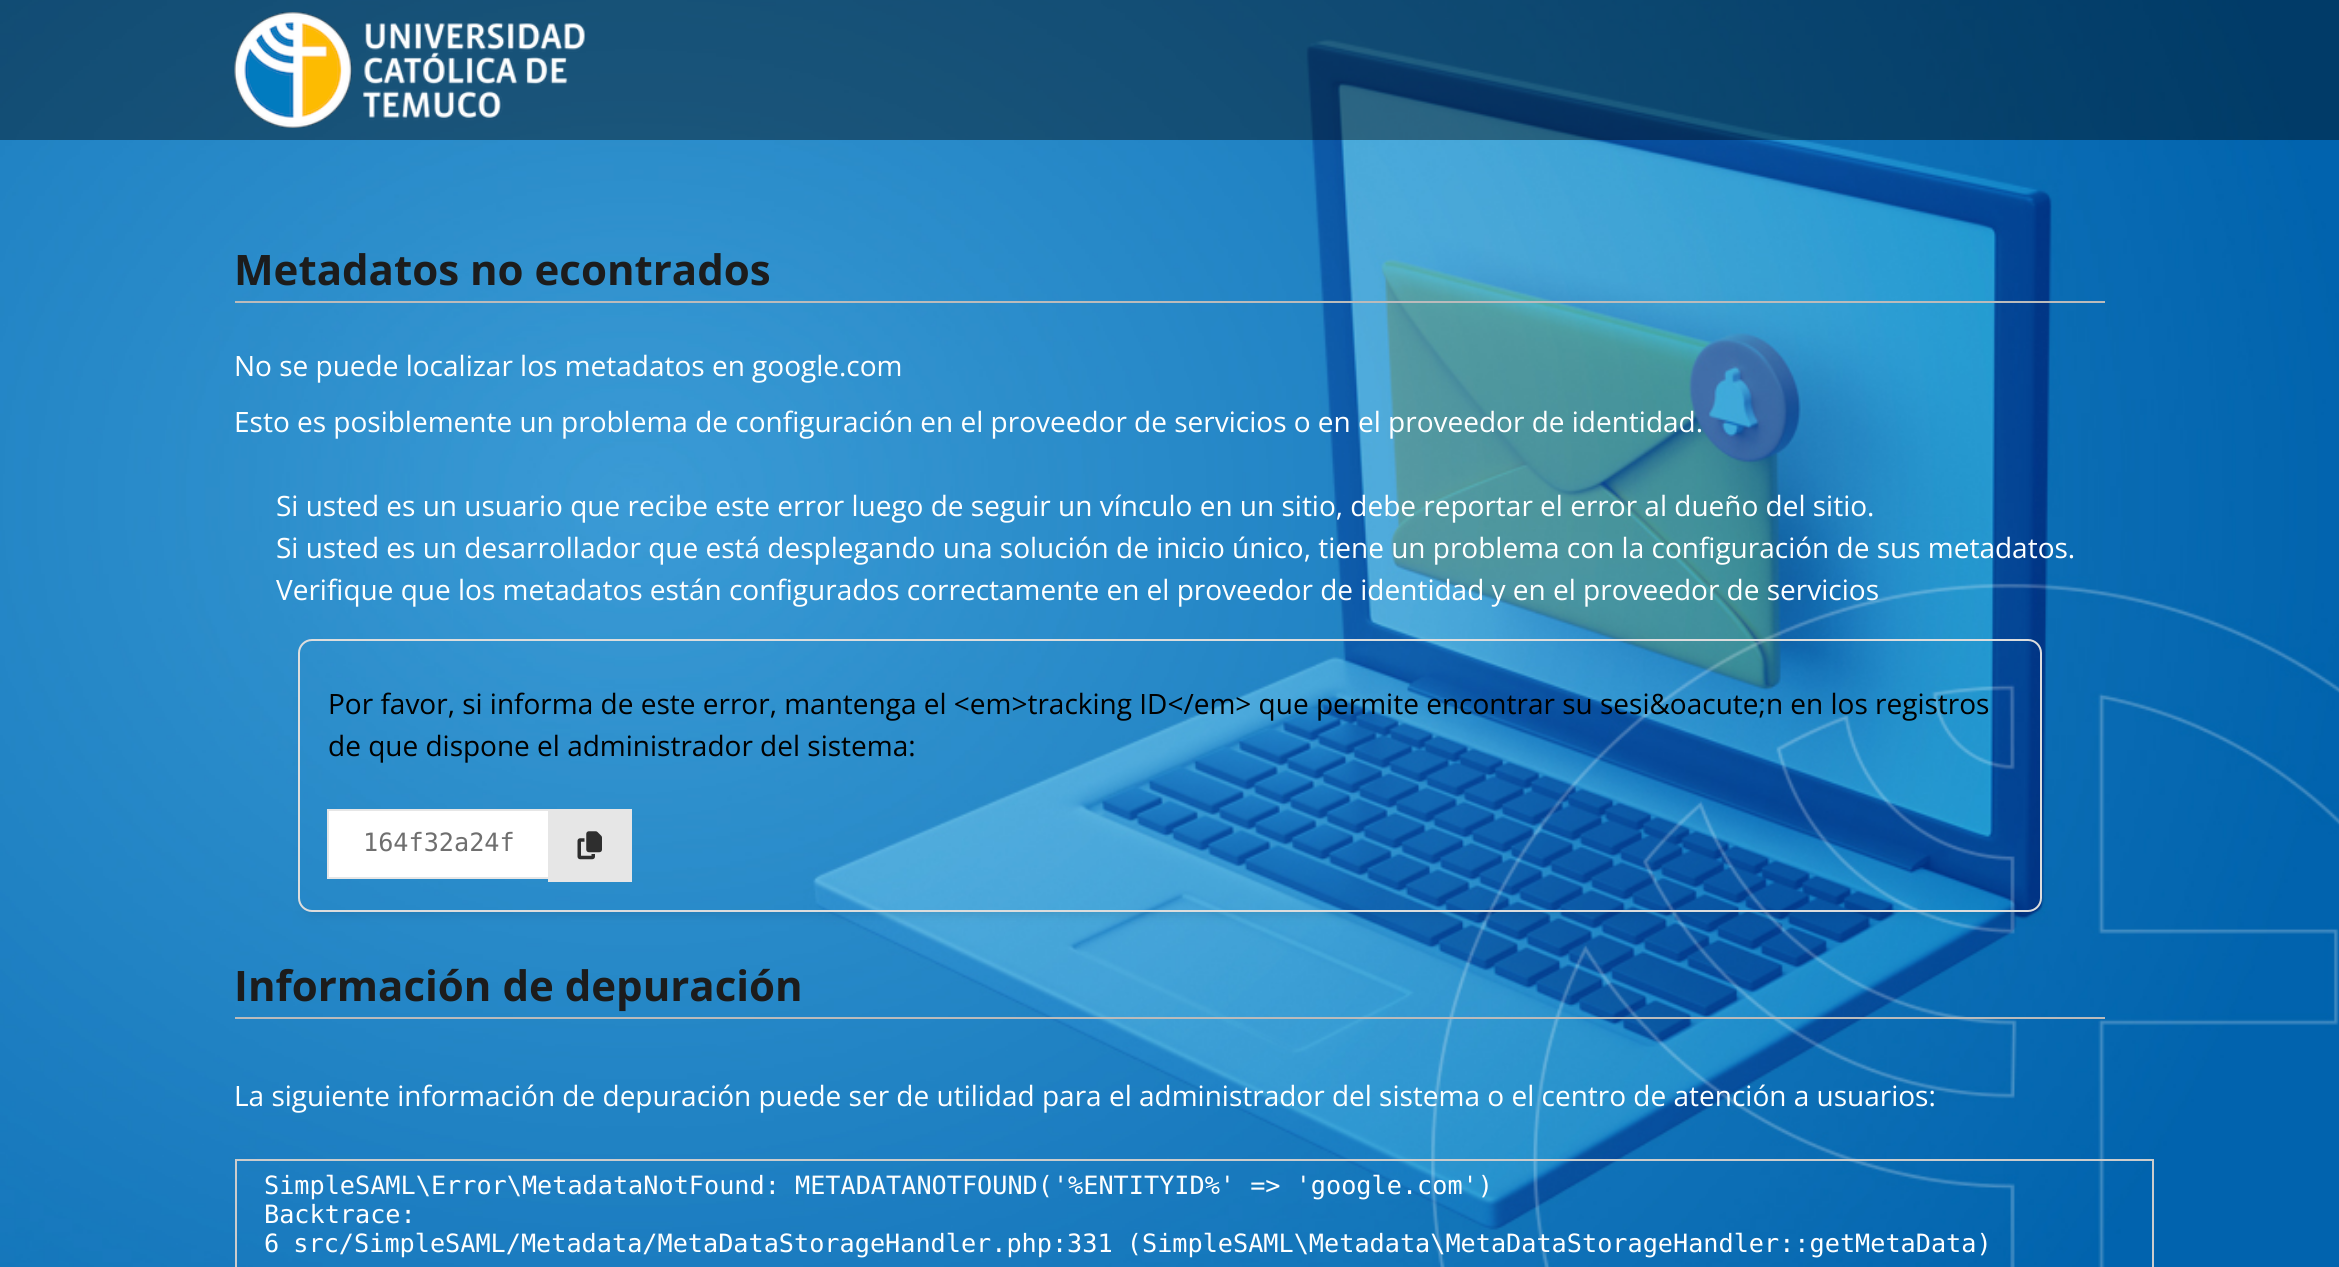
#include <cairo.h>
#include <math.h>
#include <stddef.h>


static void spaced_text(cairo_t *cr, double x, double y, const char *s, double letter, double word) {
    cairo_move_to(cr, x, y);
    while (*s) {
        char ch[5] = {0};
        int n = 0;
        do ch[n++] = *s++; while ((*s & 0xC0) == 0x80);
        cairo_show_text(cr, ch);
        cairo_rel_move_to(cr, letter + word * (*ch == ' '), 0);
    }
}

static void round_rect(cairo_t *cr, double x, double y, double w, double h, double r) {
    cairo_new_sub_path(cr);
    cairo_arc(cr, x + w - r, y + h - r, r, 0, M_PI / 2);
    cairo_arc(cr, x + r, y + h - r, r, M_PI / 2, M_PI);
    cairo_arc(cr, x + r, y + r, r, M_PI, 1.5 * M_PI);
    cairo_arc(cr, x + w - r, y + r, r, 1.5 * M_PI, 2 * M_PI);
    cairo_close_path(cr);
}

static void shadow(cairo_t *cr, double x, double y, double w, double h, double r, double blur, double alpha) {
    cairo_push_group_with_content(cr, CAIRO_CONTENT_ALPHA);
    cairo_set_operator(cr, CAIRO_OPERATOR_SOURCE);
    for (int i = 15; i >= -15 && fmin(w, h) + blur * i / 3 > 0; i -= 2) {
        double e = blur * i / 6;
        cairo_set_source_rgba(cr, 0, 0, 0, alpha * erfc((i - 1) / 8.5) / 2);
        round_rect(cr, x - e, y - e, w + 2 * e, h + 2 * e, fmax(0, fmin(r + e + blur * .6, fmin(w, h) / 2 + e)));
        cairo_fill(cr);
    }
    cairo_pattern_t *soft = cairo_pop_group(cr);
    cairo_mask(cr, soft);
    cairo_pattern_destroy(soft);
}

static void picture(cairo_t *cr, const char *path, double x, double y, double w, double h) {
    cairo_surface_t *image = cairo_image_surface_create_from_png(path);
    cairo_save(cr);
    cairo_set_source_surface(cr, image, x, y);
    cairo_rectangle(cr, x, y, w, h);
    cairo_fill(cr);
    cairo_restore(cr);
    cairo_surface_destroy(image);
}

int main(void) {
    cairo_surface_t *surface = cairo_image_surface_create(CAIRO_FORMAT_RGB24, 2339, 1267);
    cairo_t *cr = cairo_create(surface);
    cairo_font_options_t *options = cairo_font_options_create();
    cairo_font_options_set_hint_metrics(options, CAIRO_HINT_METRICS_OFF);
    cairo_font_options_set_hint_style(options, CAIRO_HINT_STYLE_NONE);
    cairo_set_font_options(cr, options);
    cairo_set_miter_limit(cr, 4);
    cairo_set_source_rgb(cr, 1, 1, 1);
    cairo_paint(cr);
    picture(cr, "img1.png", 0, 0, 2339, 1267);
    cairo_set_source_rgba(cr, 0, 0, 0, 0.4);
    cairo_rectangle(cr, 0, 0, 2339, 140);
    cairo_fill(cr);
    picture(cr, "img2.png", 234, 12, 351, 116);
    cairo_set_source_rgb(cr, 0.733, 0.733, 0.733);
    cairo_rectangle(cr, 235, 301, 1870, 2);
    cairo_fill(cr);
    cairo_select_font_face(cr, "Open Sans", CAIRO_FONT_SLANT_NORMAL, CAIRO_FONT_WEIGHT_BOLD);
    cairo_set_font_size(cr, 42);
    cairo_set_source_rgb(cr, 0.11, 0.11, 0.11);
    cairo_move_to(cr, 234, 285);
    cairo_show_text(cr, "Metadatos no econtrados");
    cairo_select_font_face(cr, "Open Sans", CAIRO_FONT_SLANT_NORMAL, CAIRO_FONT_WEIGHT_NORMAL);
    cairo_set_font_size(cr, 28);
    cairo_set_source_rgb(cr, 1, 1, 1);
    cairo_move_to(cr, 234, 376);
    cairo_show_text(cr, "No se puede localizar los metadatos en google.com");
    cairo_move_to(cr, 234, 432);
    cairo_show_text(cr, "Esto es posiblemente un problema de configuración en el proveedor de servicios o en el proveedor de identidad.");
    cairo_move_to(cr, 276, 516);
    cairo_show_text(cr, "Si usted es un usuario que recibe este error luego de seguir un vínculo en un sitio, debe reportar el error al dueño del sitio.");
    cairo_move_to(cr, 276, 558);
    cairo_show_text(cr, "Si usted es un desarrollador que está desplegando una solución de inicio único, tiene un problema con la configuración de sus metadatos.");
    cairo_move_to(cr, 276, 600);
    cairo_show_text(cr, "Verifique que los metadatos están configurados correctamente en el proveedor de identidad y en el proveedor de servicios");
    cairo_save(cr);
    cairo_set_fill_rule(cr, CAIRO_FILL_RULE_EVEN_ODD);
    cairo_new_path(cr);
    cairo_move_to(cr, 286, 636);
    cairo_line_to(cr, 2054, 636);
    cairo_line_to(cr, 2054, 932);
    cairo_line_to(cr, 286, 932);
    cairo_close_path(cr);
    cairo_move_to(cr, 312, 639);
    cairo_line_to(cr, 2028, 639);
    cairo_curve_to(cr, 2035.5, 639, 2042, 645.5, 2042, 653);
    cairo_line_to(cr, 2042, 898);
    cairo_curve_to(cr, 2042, 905.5, 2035.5, 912, 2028, 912);
    cairo_line_to(cr, 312, 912);
    cairo_curve_to(cr, 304.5, 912, 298, 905.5, 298, 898);
    cairo_line_to(cr, 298, 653);
    cairo_curve_to(cr, 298, 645.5, 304.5, 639, 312, 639);
    cairo_close_path(cr);
    cairo_clip(cr);
    cairo_set_source_rgb(cr, 0, 0, 0);
    shadow(cr, 308, 658, 1724, 252, 4, 7, 0.2);
    cairo_restore(cr);
    round_rect(cr, 299, 640, 1742, 271, 13);
    cairo_set_source_rgb(cr, 0.867, 0.867, 0.867);
    cairo_stroke(cr);
    cairo_set_source_rgb(cr, 0, 0, 0);
    cairo_move_to(cr, 328, 714);
    cairo_show_text(cr, "Por favor, si informa de este error, mantenga el <em>tracking ID</em> que permite encontrar su sesi&oacute;n en los registros");
    cairo_move_to(cr, 328, 756);
    cairo_show_text(cr, "de que dispone el administrador del sistema:");
    cairo_set_source_rgb(cr, 1, 1, 1);
    cairo_rectangle(cr, 329, 811, 219, 66);
    cairo_fill(cr);
    cairo_set_source_rgb(cr, 0.902, 0.902, 0.902);
    cairo_rectangle(cr, 327, 809, 221, 2);
    cairo_fill(cr);
    cairo_rectangle(cr, 327, 877, 221, 2);
    cairo_fill(cr);
    cairo_rectangle(cr, 327, 809, 2, 70);
    cairo_fill(cr);
    cairo_select_font_face(cr, "DejaVu Sans Mono", CAIRO_FONT_SLANT_NORMAL, CAIRO_FONT_WEIGHT_NORMAL);
    cairo_set_font_size(cr, 25.2);
    cairo_set_source_rgb(cr, 0.435, 0.435, 0.435);
    cairo_move_to(cr, 363, 851);
    cairo_show_text(cr, "164f32a24f");
    cairo_set_source_rgb(cr, 0.902, 0.902, 0.902);
    cairo_rectangle(cr, 548, 809, 84, 73);
    cairo_fill(cr);
    picture(cr, "img3.png", 577, 831, 25, 29);
    cairo_set_source_rgb(cr, 0.733, 0.733, 0.733);
    cairo_rectangle(cr, 235, 1017, 1870, 2);
    cairo_fill(cr);
    cairo_select_font_face(cr, "Open Sans", CAIRO_FONT_SLANT_NORMAL, CAIRO_FONT_WEIGHT_BOLD);
    cairo_set_font_size(cr, 42);
    cairo_set_source_rgb(cr, 0.11, 0.11, 0.11);
    cairo_move_to(cr, 234, 1001);
    cairo_show_text(cr, "Información de depuración");
    cairo_select_font_face(cr, "Open Sans", CAIRO_FONT_SLANT_NORMAL, CAIRO_FONT_WEIGHT_NORMAL);
    cairo_set_font_size(cr, 28);
    cairo_set_source_rgb(cr, 1, 1, 1);
    cairo_move_to(cr, 234, 1106);
    cairo_show_text(cr, "La siguiente información de depuración puede ser de utilidad para el administrador del sistema o el centro de atención a usuarios:");
    cairo_rectangle(cr, 236, 1160, 1917, 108);
    cairo_set_source_rgb(cr, 0.8, 0.8, 0.8);
    cairo_stroke(cr);
    cairo_select_font_face(cr, "DejaVu Sans Mono", CAIRO_FONT_SLANT_NORMAL, CAIRO_FONT_WEIGHT_NORMAL);
    cairo_set_font_size(cr, 25.2);
    cairo_set_source_rgb(cr, 1, 1, 1);
    cairo_move_to(cr, 264, 1194);
    cairo_show_text(cr, "SimpleSAML\\Error\\MetadataNotFound: METADATANOTFOUND('%ENTITYID%' => 'google.com')");
    cairo_move_to(cr, 264, 1223);
    cairo_show_text(cr, "Backtrace:");
    spaced_text(cr, 264, 1252, "6 src/SimpleSAML/Metadata/MetaDataStorageHandler.php:331 (SimpleSAML\\Metadata\\MetaDataStorageHandler::getMetaData)", 0, -1);
    cairo_surface_write_to_png(surface, "page.png");
    cairo_font_options_destroy(options);
    cairo_destroy(cr);
    cairo_surface_destroy(surface);
    return 0;
}
